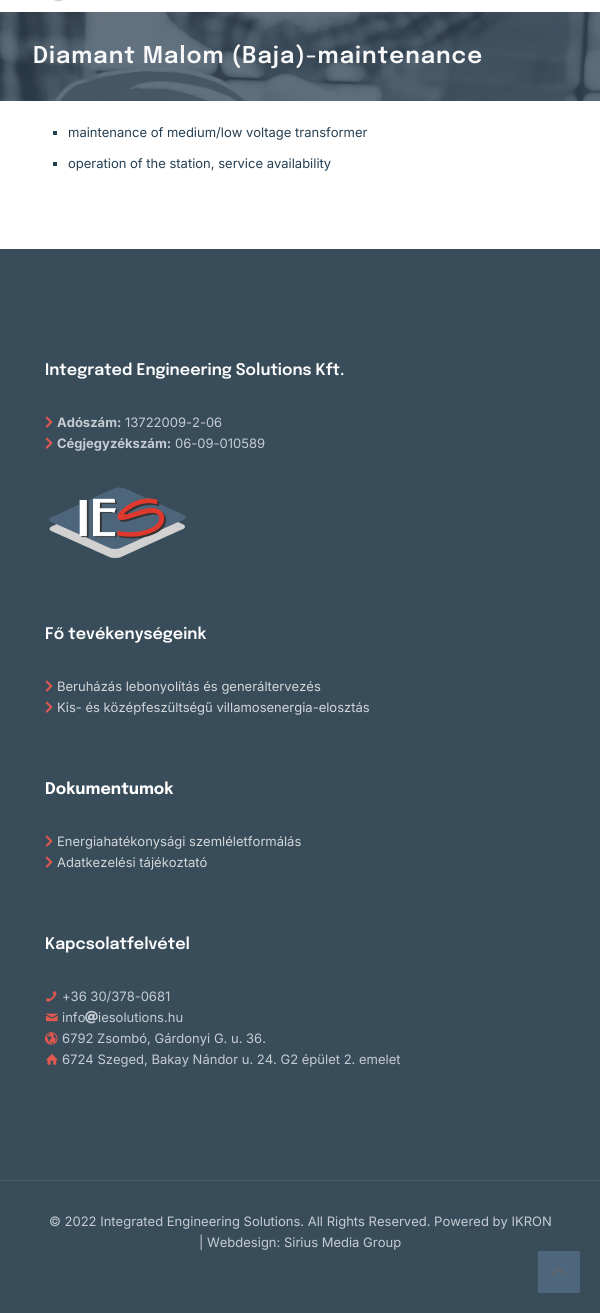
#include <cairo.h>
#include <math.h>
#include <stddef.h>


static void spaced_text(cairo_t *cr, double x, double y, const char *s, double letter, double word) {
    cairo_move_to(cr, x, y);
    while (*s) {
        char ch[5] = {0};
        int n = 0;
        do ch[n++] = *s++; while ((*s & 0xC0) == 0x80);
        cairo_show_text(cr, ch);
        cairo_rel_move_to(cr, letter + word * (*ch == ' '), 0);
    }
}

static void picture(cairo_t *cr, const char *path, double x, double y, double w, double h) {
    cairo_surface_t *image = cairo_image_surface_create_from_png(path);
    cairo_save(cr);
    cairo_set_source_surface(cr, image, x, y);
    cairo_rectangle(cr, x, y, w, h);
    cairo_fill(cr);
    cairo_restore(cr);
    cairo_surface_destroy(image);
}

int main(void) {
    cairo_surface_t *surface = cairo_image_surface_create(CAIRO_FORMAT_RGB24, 600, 1313);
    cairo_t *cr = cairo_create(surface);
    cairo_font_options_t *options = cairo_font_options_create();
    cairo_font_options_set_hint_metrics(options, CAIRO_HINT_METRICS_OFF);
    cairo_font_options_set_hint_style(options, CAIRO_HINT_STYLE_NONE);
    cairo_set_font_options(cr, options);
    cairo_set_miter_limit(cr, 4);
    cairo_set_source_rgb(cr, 1, 1, 1);
    cairo_paint(cr);
    picture(cr, "img1.png", 54, 0, 9, 2);
    picture(cr, "img2.png", 0, 12, 600, 89);
    cairo_select_font_face(cr, "Epilogue SemiBold", CAIRO_FONT_SLANT_NORMAL, CAIRO_FONT_WEIGHT_NORMAL);
    cairo_set_font_size(cr, 23);
    cairo_set_source_rgb(cr, 0.969, 0.969, 0.969);
    spaced_text(cr, 33, 63, "Diamant Malom (Baja)-maintenance", 1, 0);
    cairo_set_source_rgb(cr, 0.145, 0.247, 0.322);
    cairo_rectangle(cr, 53, 131, 4, 4);
    cairo_fill(cr);
    cairo_select_font_face(cr, "Inter", CAIRO_FONT_SLANT_NORMAL, CAIRO_FONT_WEIGHT_NORMAL);
    cairo_set_font_size(cr, 13);
    cairo_move_to(cr, 68, 137);
    cairo_show_text(cr, "maintenance of medium/low voltage transformer");
    cairo_rectangle(cr, 53, 162, 4, 4);
    cairo_fill(cr);
    cairo_move_to(cr, 68, 168);
    cairo_show_text(cr, "operation of the station, service availability");
    cairo_set_source_rgb(cr, 0.224, 0.298, 0.353);
    cairo_rectangle(cr, 0, 249, 600, 1064);
    cairo_fill(cr);
    cairo_select_font_face(cr, "Epilogue SemiBold", CAIRO_FONT_SLANT_NORMAL, CAIRO_FONT_WEIGHT_NORMAL);
    cairo_set_font_size(cr, 16);
    cairo_set_source_rgb(cr, 1, 1, 1);
    cairo_move_to(cr, 45, 375);
    cairo_show_text(cr, "Integrated Engineering Solutions Kft.");
    picture(cr, "img3.png", 45, 416, 8, 12);
    cairo_select_font_face(cr, "Inter", CAIRO_FONT_SLANT_NORMAL, CAIRO_FONT_WEIGHT_BOLD);
    cairo_set_font_size(cr, 13);
    cairo_set_source_rgb(cr, 0.773, 0.8, 0.824);
    cairo_move_to(cr, 57, 427);
    cairo_show_text(cr, "Adószám:");
    cairo_select_font_face(cr, "Inter", CAIRO_FONT_SLANT_NORMAL, CAIRO_FONT_WEIGHT_NORMAL);
    cairo_move_to(cr, 125, 427);
    cairo_show_text(cr, "13722009-2-06");
    picture(cr, "img3.png", 45, 437, 8, 12);
    cairo_select_font_face(cr, "Inter", CAIRO_FONT_SLANT_NORMAL, CAIRO_FONT_WEIGHT_BOLD);
    cairo_move_to(cr, 57, 448);
    cairo_show_text(cr, "Cégjegyzékszám:");
    cairo_select_font_face(cr, "Inter", CAIRO_FONT_SLANT_NORMAL, CAIRO_FONT_WEIGHT_NORMAL);
    cairo_move_to(cr, 175, 448);
    cairo_show_text(cr, "06-09-010589");
    picture(cr, "img4.png", 49, 487, 137, 72);
    cairo_select_font_face(cr, "Epilogue SemiBold", CAIRO_FONT_SLANT_NORMAL, CAIRO_FONT_WEIGHT_NORMAL);
    cairo_set_font_size(cr, 16);
    cairo_set_source_rgb(cr, 1, 1, 1);
    cairo_move_to(cr, 45, 639);
    cairo_show_text(cr, "Fő tevékenységeink");
    picture(cr, "img3.png", 45, 680, 8, 12);
    cairo_select_font_face(cr, "Inter", CAIRO_FONT_SLANT_NORMAL, CAIRO_FONT_WEIGHT_NORMAL);
    cairo_set_font_size(cr, 13);
    cairo_set_source_rgb(cr, 0.824, 0.843, 0.851);
    cairo_move_to(cr, 57, 691);
    cairo_show_text(cr, "Beruházás lebonyolítás és generáltervezés");
    picture(cr, "img3.png", 45, 701, 8, 12);
    cairo_move_to(cr, 57, 712);
    cairo_show_text(cr, "Kis- és középfeszültségű villamosenergia-elosztás");
    cairo_select_font_face(cr, "Epilogue", CAIRO_FONT_SLANT_NORMAL, CAIRO_FONT_WEIGHT_BOLD);
    cairo_set_font_size(cr, 16);
    cairo_set_source_rgb(cr, 1, 1, 1);
    cairo_move_to(cr, 45, 794);
    cairo_show_text(cr, "Dokumentumok");
    picture(cr, "img3.png", 45, 835, 8, 12);
    cairo_select_font_face(cr, "Inter", CAIRO_FONT_SLANT_NORMAL, CAIRO_FONT_WEIGHT_NORMAL);
    cairo_set_font_size(cr, 13);
    cairo_set_source_rgb(cr, 0.824, 0.843, 0.851);
    cairo_move_to(cr, 57, 846);
    cairo_show_text(cr, "Energiahatékonysági szemléletformálás");
    picture(cr, "img3.png", 45, 856, 8, 12);
    cairo_move_to(cr, 57, 867);
    cairo_show_text(cr, "Adatkezelési tájékoztató");
    cairo_select_font_face(cr, "Epilogue SemiBold", CAIRO_FONT_SLANT_NORMAL, CAIRO_FONT_WEIGHT_NORMAL);
    cairo_set_font_size(cr, 16);
    cairo_set_source_rgb(cr, 1, 1, 1);
    cairo_move_to(cr, 45, 949);
    cairo_show_text(cr, "Kapcsolatfelvétel");
    picture(cr, "img5.png", 46, 991, 11, 11);
    cairo_select_font_face(cr, "Inter", CAIRO_FONT_SLANT_NORMAL, CAIRO_FONT_WEIGHT_NORMAL);
    cairo_set_font_size(cr, 13);
    cairo_set_source_rgb(cr, 0.773, 0.8, 0.824);
    cairo_move_to(cr, 62, 1001);
    cairo_show_text(cr, "+36 30/378-0681");
    picture(cr, "img6.png", 46, 1013, 12, 9);
    cairo_move_to(cr, 62, 1022);
    cairo_show_text(cr, "info");
    picture(cr, "img7.png", 85, 1010, 13, 14);
    cairo_move_to(cr, 98, 1022);
    cairo_show_text(cr, "iesolutions.hu");
    picture(cr, "img8.png", 45, 1032, 13, 13);
    cairo_move_to(cr, 62, 1043);
    cairo_show_text(cr, "6792 Zsombó, Gárdonyi G. u. 36.");
    picture(cr, "img9.png", 46, 1054, 12, 11);
    cairo_move_to(cr, 62, 1064);
    cairo_show_text(cr, "6724 Szeged, Bakay Nándor u. 24. G2 épület 2. emelet");
    cairo_set_source_rgb(cr, 0.302, 0.369, 0.42);
    cairo_rectangle(cr, 0, 1180, 600, 1);
    cairo_fill(cr);
    cairo_set_source_rgb(cr, 0.773, 0.8, 0.824);
    cairo_move_to(cr, 49, 1226);
    cairo_show_text(cr, "© 2022 Integrated Engineering Solutions. All Rights Reserved. Powered by IKRON");
    cairo_move_to(cr, 199, 1247);
    cairo_show_text(cr, "| Webdesign: Sirius Media Group");
    cairo_set_source_rgb(cr, 0.302, 0.4, 0.486);
    cairo_rectangle(cr, 538, 1251, 42, 42);
    cairo_fill(cr);
    picture(cr, "img10.png", 550, 1267, 17, 10);
    cairo_surface_write_to_png(surface, "page.png");
    cairo_font_options_destroy(options);
    cairo_destroy(cr);
    cairo_surface_destroy(surface);
    return 0;
}
